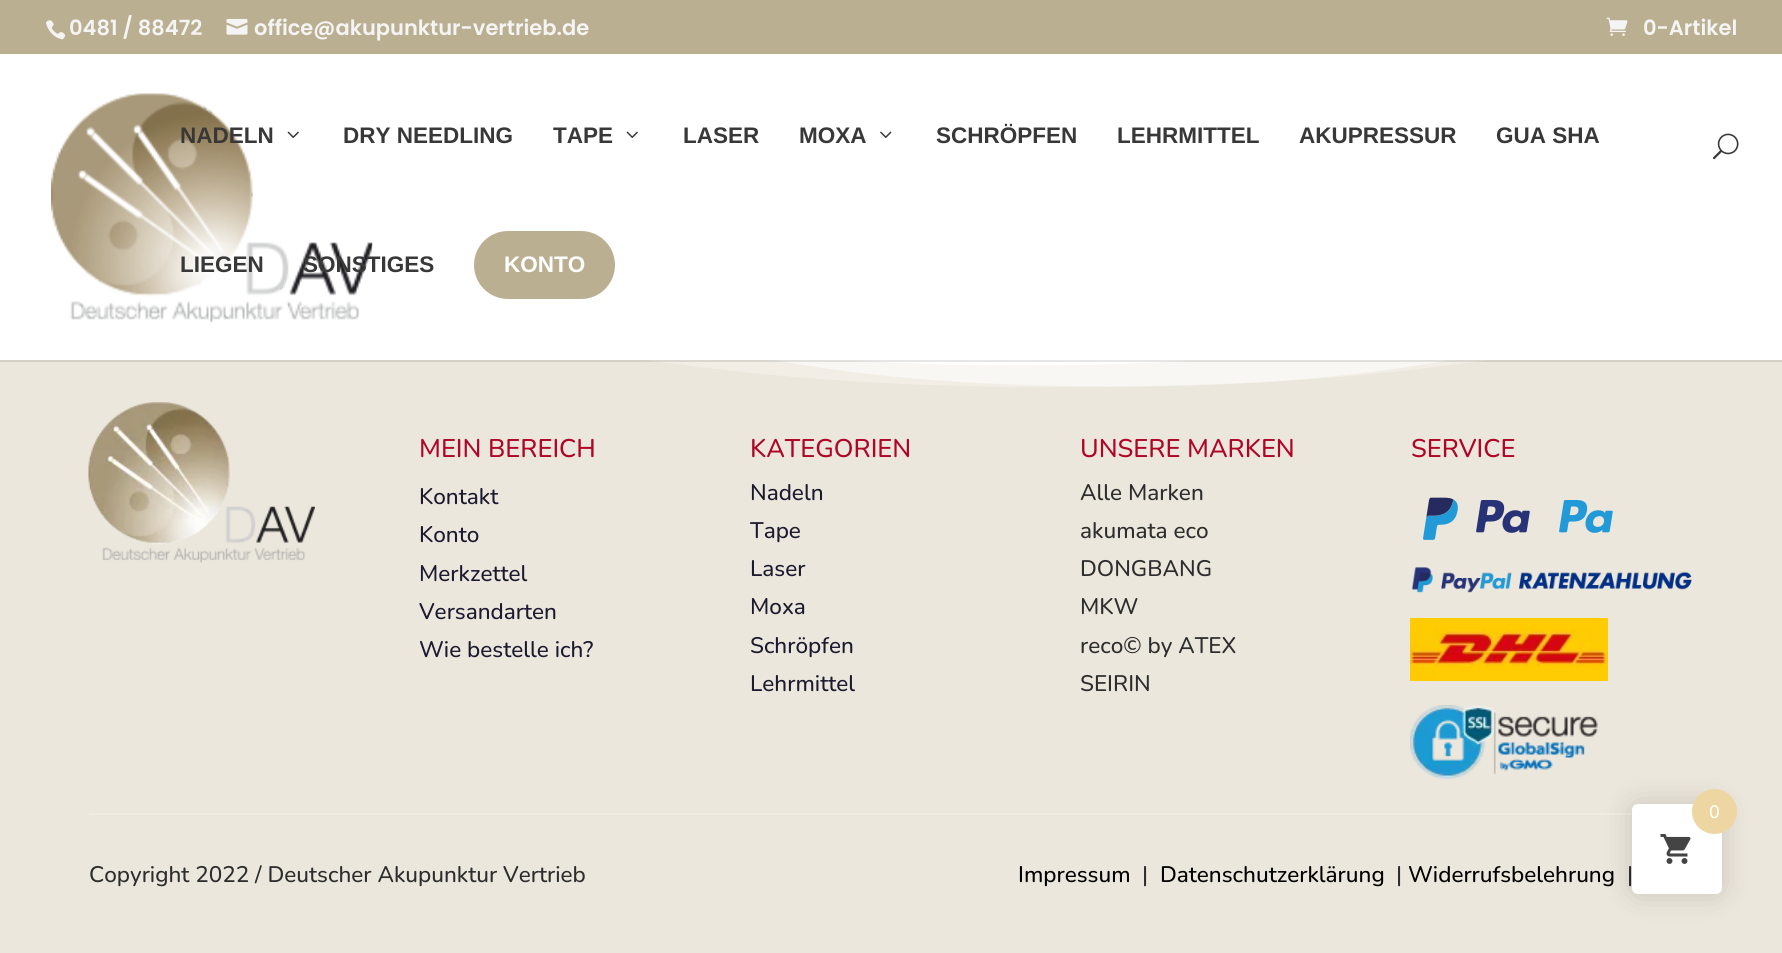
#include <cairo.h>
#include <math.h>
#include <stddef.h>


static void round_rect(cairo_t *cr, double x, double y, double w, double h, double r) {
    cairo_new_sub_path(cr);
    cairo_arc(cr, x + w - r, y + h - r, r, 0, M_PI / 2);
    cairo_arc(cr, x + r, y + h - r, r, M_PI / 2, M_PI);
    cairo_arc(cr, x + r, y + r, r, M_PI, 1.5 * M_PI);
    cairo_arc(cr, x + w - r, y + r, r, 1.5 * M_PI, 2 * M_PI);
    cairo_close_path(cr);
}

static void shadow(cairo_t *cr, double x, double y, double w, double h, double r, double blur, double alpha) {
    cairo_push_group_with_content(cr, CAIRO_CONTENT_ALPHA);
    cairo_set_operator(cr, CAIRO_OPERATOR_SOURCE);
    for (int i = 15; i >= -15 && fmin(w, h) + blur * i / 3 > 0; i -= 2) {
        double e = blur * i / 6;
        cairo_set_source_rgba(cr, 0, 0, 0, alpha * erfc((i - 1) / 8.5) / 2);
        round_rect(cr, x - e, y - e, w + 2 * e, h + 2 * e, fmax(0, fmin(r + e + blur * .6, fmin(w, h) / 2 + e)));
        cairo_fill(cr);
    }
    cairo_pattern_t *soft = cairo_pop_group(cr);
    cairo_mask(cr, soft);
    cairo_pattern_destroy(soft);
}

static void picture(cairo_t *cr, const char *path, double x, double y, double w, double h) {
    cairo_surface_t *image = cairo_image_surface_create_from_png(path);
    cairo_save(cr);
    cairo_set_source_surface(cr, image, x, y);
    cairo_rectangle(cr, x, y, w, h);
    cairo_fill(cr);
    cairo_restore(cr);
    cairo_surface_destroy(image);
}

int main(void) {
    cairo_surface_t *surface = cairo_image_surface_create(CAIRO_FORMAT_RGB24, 1782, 953);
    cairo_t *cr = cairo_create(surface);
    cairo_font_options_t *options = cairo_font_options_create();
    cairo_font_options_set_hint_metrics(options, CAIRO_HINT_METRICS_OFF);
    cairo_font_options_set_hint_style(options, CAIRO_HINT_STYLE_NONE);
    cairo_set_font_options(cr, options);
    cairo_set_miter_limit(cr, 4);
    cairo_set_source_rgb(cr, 0.925, 0.906, 0.863);
    cairo_paint(cr);
    cairo_set_source_rgb(cr, 0.733, 0.686, 0.569);
    cairo_rectangle(cr, 0, 0, 1782, 54);
    cairo_fill(cr);
    picture(cr, "img1.png", 46, 20, 20, 20);
    cairo_select_font_face(cr, "Poppins SemiBold", CAIRO_FONT_SLANT_NORMAL, CAIRO_FONT_WEIGHT_NORMAL);
    cairo_set_font_size(cr, 21);
    cairo_set_source_rgb(cr, 0.957, 0.957, 0.957);
    cairo_move_to(cr, 69, 35);
    cairo_show_text(cr, "0481 / 88472");
    picture(cr, "img2.png", 226, 18, 22, 17);
    cairo_move_to(cr, 254, 35);
    cairo_show_text(cr, "office@akupunktur-vertrieb.de");
    picture(cr, "img3.png", 1606, 17, 22, 19);
    cairo_move_to(cr, 1643, 35);
    cairo_show_text(cr, "0-Artikel");
    picture(cr, "img8.png", 647, 360, 840, 27);
    cairo_set_source_rgba(cr, 0, 0, 0, 0.1);
    cairo_rectangle(cr, 0, 360, 1782, 2);
    cairo_fill(cr);
    cairo_set_source_rgb(cr, 1, 1, 1);
    cairo_rectangle(cr, 0, 54, 1782, 306);
    cairo_fill(cr);
    picture(cr, "img4.png", 51, 93, 322, 230);
    cairo_select_font_face(cr, "Liberation Sans", CAIRO_FONT_SLANT_NORMAL, CAIRO_FONT_WEIGHT_BOLD);
    cairo_set_font_size(cr, 22.5);
    cairo_set_source_rgb(cr, 0.22, 0.22, 0.22);
    cairo_move_to(cr, 180, 143);
    cairo_show_text(cr, "NADELN");
    picture(cr, "img5.png", 287, 131, 12, 7);
    cairo_move_to(cr, 343, 143);
    cairo_show_text(cr, "DRY NEEDLING");
    cairo_move_to(cr, 553, 143);
    cairo_show_text(cr, "TAPE");
    picture(cr, "img5.png", 626, 131, 12, 7);
    cairo_move_to(cr, 683, 143);
    cairo_show_text(cr, "LASER");
    cairo_move_to(cr, 799, 143);
    cairo_show_text(cr, "MOXA");
    picture(cr, "img6.png", 880, 131, 12, 7);
    cairo_move_to(cr, 936, 143);
    cairo_show_text(cr, "SCHRÖPFEN");
    cairo_move_to(cr, 1117, 143);
    cairo_show_text(cr, "LEHRMITTEL");
    cairo_move_to(cr, 1299, 143);
    cairo_show_text(cr, "AKUPRESSUR");
    cairo_move_to(cr, 1496, 143);
    cairo_show_text(cr, "GUA SHA");
    cairo_move_to(cr, 180, 272);
    cairo_show_text(cr, "LIEGEN");
    cairo_move_to(cr, 303, 272);
    cairo_show_text(cr, "SONSTIGES");
    cairo_set_source_rgb(cr, 0.733, 0.686, 0.569);
    round_rect(cr, 474, 231, 141, 68, 34);
    cairo_fill(cr);
    cairo_set_source_rgb(cr, 1, 1, 1);
    cairo_move_to(cr, 504, 272);
    cairo_show_text(cr, "KONTO");
    picture(cr, "img7.png", 1712, 133, 27, 27);
    picture(cr, "img9.png", 88, 402, 227, 161);
    cairo_select_font_face(cr, "Nunito Medium", CAIRO_FONT_SLANT_NORMAL, CAIRO_FONT_WEIGHT_NORMAL);
    cairo_set_font_size(cr, 25.5);
    cairo_set_source_rgb(cr, 0.686, 0.02, 0.153);
    cairo_move_to(cr, 419, 457);
    cairo_show_text(cr, "MEIN BEREICH");
    cairo_set_font_size(cr, 22.5);
    cairo_set_source_rgb(cr, 0.11, 0.102, 0.188);
    cairo_move_to(cr, 419, 504);
    cairo_show_text(cr, "Kontakt");
    cairo_move_to(cr, 419, 542);
    cairo_show_text(cr, "Konto");
    cairo_move_to(cr, 419, 581);
    cairo_show_text(cr, "Merkzettel");
    cairo_move_to(cr, 419, 619);
    cairo_show_text(cr, "Versandarten");
    cairo_move_to(cr, 419, 657);
    cairo_show_text(cr, "Wie bestelle ich?");
    cairo_set_font_size(cr, 25.5);
    cairo_set_source_rgb(cr, 0.686, 0.02, 0.153);
    cairo_move_to(cr, 750, 457);
    cairo_show_text(cr, "KATEGORIEN");
    cairo_set_font_size(cr, 22.5);
    cairo_set_source_rgb(cr, 0.11, 0.102, 0.188);
    cairo_move_to(cr, 750, 500);
    cairo_show_text(cr, "Nadeln");
    cairo_move_to(cr, 750, 538);
    cairo_show_text(cr, "Tape");
    cairo_move_to(cr, 750, 576);
    cairo_show_text(cr, "Laser");
    cairo_move_to(cr, 750, 614);
    cairo_show_text(cr, "Moxa");
    cairo_move_to(cr, 750, 653);
    cairo_show_text(cr, "Schröpfen");
    cairo_move_to(cr, 750, 691);
    cairo_show_text(cr, "Lehrmittel");
    cairo_set_font_size(cr, 25.5);
    cairo_set_source_rgb(cr, 0.686, 0.02, 0.153);
    cairo_move_to(cr, 1080, 457);
    cairo_show_text(cr, "UNSERE MARKEN");
    cairo_set_font_size(cr, 22.5);
    cairo_set_source_rgb(cr, 0.176, 0.176, 0.176);
    cairo_move_to(cr, 1080, 500);
    cairo_show_text(cr, "Alle Marken");
    cairo_move_to(cr, 1080, 538);
    cairo_show_text(cr, "akumata eco");
    cairo_move_to(cr, 1080, 576);
    cairo_show_text(cr, "DONGBANG");
    cairo_move_to(cr, 1080, 614);
    cairo_show_text(cr, "MKW");
    cairo_move_to(cr, 1080, 653);
    cairo_show_text(cr, "reco© by ATEX");
    cairo_move_to(cr, 1080, 691);
    cairo_show_text(cr, "SEIRIN");
    cairo_set_font_size(cr, 25.5);
    cairo_set_source_rgb(cr, 0.686, 0.02, 0.153);
    cairo_move_to(cr, 1411, 457);
    cairo_show_text(cr, "SERVICE");
    picture(cr, "img10.png", 1423, 497, 190, 43);
    picture(cr, "img11.png", 1411, 567, 281, 26);
    picture(cr, "img12.png", 1410, 618, 198, 63);
    picture(cr, "img13.png", 1410, 705, 188, 74);
    cairo_set_source_rgb(cr, 0.941, 0.925, 0.89);
    cairo_rectangle(cr, 89, 813, 1543, 2);
    cairo_fill(cr);
    cairo_set_font_size(cr, 22.5);
    cairo_set_source_rgb(cr, 0.176, 0.176, 0.176);
    cairo_move_to(cr, 89, 882);
    cairo_show_text(cr, "Copyright 2022 / Deutscher Akupunktur Vertrieb");
    cairo_set_source_rgb(cr, 0, 0, 0);
    cairo_move_to(cr, 1018, 882);
    cairo_show_text(cr, "Impressum");
    cairo_set_source_rgb(cr, 0.176, 0.176, 0.176);
    cairo_move_to(cr, 1142, 882);
    cairo_show_text(cr, "|");
    cairo_set_source_rgb(cr, 0, 0, 0);
    cairo_move_to(cr, 1160, 882);
    cairo_show_text(cr, "Datenschutzerklärung");
    cairo_set_source_rgb(cr, 0.176, 0.176, 0.176);
    cairo_move_to(cr, 1396, 882);
    cairo_show_text(cr, "|");
    cairo_set_source_rgb(cr, 0, 0, 0);
    cairo_move_to(cr, 1408, 882);
    cairo_show_text(cr, "Widerrufsbelehrung");
    cairo_set_source_rgb(cr, 0.176, 0.176, 0.176);
    cairo_move_to(cr, 1627, 882);
    cairo_show_text(cr, "|");
    cairo_set_source_rgb(cr, 0, 0, 0);
    shadow(cr, 1632, 804, 90, 90, 6, 15, 0.15);
    cairo_set_source_rgb(cr, 1, 1, 1);
    round_rect(cr, 1632, 804, 90, 90, 6);
    cairo_fill(cr);
    cairo_set_source_rgb(cr, 0.929, 0.839, 0.635);
    cairo_arc(cr, 1714.5, 811.5, 22.5, 0, 2 * M_PI);
    cairo_fill(cr);
    cairo_set_font_size(cr, 18);
    cairo_set_source_rgb(cr, 1, 1, 1);
    cairo_move_to(cr, 1709, 818);
    cairo_show_text(cr, "0");
    picture(cr, "img14.png", 1660, 834, 31, 30);
    cairo_surface_write_to_png(surface, "page.png");
    cairo_font_options_destroy(options);
    cairo_destroy(cr);
    cairo_surface_destroy(surface);
    return 0;
}
